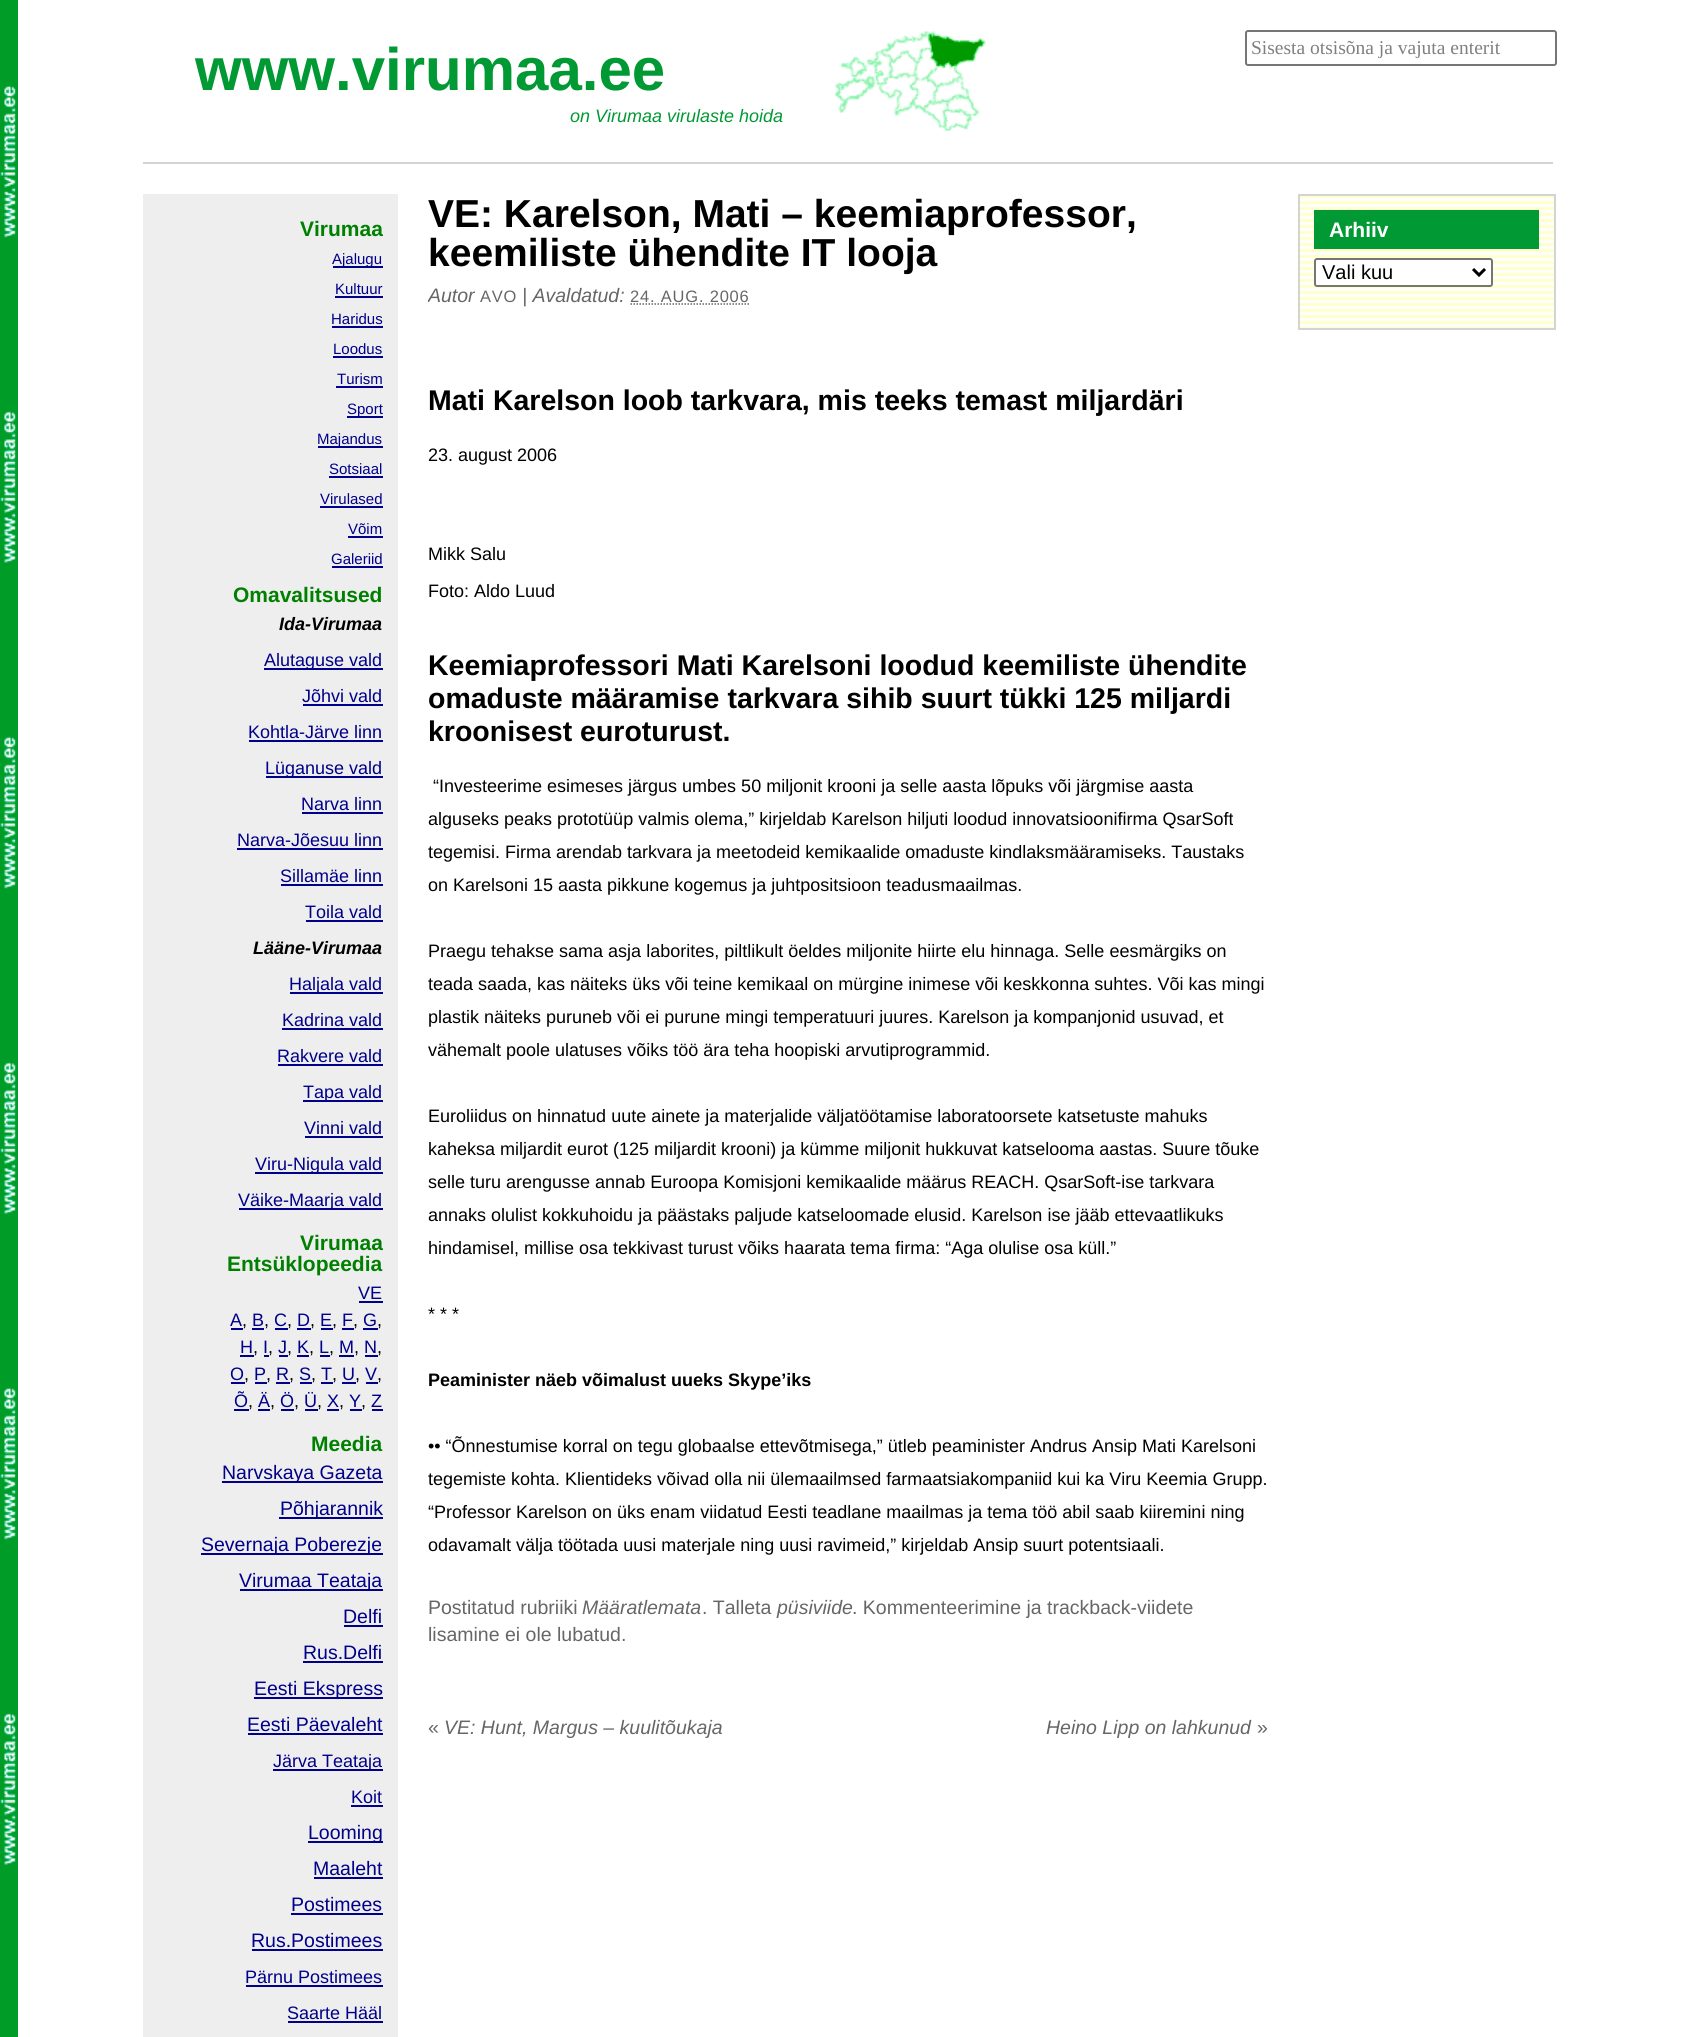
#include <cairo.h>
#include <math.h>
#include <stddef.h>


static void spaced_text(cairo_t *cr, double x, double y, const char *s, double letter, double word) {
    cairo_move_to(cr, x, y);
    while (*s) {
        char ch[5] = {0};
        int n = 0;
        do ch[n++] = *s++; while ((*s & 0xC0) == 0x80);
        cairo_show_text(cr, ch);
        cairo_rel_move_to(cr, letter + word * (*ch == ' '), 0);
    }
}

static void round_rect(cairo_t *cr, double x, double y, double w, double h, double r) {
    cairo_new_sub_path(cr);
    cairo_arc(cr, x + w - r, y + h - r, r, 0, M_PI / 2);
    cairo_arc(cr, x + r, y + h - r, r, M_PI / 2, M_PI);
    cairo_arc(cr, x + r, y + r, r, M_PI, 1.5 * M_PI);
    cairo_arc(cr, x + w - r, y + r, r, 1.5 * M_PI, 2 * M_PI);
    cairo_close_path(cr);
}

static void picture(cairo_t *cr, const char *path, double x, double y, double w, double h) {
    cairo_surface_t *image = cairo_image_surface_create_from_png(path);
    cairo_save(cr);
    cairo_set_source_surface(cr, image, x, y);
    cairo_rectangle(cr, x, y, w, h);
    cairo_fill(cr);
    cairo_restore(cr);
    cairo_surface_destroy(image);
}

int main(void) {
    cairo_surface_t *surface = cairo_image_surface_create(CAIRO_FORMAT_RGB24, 1694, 2037);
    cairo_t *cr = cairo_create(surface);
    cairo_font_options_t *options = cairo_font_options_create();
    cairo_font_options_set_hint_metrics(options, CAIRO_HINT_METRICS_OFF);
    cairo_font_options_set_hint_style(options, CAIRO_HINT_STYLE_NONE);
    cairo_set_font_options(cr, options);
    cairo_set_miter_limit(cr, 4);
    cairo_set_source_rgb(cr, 1, 1, 1);
    cairo_paint(cr);
    picture(cr, "img1.png", 0, 0, 18, 2037);
    picture(cr, "img2.png", 835, 31, 151, 100);
    cairo_set_source_rgb(cr, 0.827, 0.827, 0.827);
    cairo_rectangle(cr, 143, 162, 1410, 2);
    cairo_fill(cr);
    cairo_select_font_face(cr, "Liberation Sans", CAIRO_FONT_SLANT_NORMAL, CAIRO_FONT_WEIGHT_BOLD);
    cairo_set_font_size(cr, 60);
    cairo_set_source_rgb(cr, 0, 0.6, 0.2);
    cairo_move_to(cr, 195, 90);
    cairo_show_text(cr, "www.virumaa.ee");
    cairo_select_font_face(cr, "Liberation Sans", CAIRO_FONT_SLANT_ITALIC, CAIRO_FONT_WEIGHT_NORMAL);
    cairo_set_font_size(cr, 18);
    cairo_move_to(cr, 570, 122);
    cairo_show_text(cr, "on Virumaa virulaste hoida");
    round_rect(cr, 1246, 31, 310, 34, 2);
    cairo_set_source_rgb(cr, 0.463, 0.463, 0.463);
    cairo_stroke(cr);
    cairo_select_font_face(cr, "Liberation Serif", CAIRO_FONT_SLANT_NORMAL, CAIRO_FONT_WEIGHT_NORMAL);
    cairo_set_font_size(cr, 19.5);
    cairo_set_source_rgb(cr, 0.502, 0.502, 0.502);
    cairo_move_to(cr, 1251, 54);
    cairo_show_text(cr, "Sisesta otsisõna ja vajuta enterit");
    cairo_set_source_rgb(cr, 0.933, 0.933, 0.933);
    cairo_rectangle(cr, 143, 194, 255, 1843);
    cairo_fill(cr);
    cairo_select_font_face(cr, "Liberation Sans", CAIRO_FONT_SLANT_NORMAL, CAIRO_FONT_WEIGHT_BOLD);
    cairo_set_font_size(cr, 21);
    cairo_set_source_rgb(cr, 0, 0.502, 0);
    cairo_move_to(cr, 300, 236);
    cairo_show_text(cr, "Virumaa");
    cairo_set_source_rgb(cr, 0, 0, 0.545);
    cairo_rectangle(cr, 333, 266, 50, 2);
    cairo_fill(cr);
    cairo_select_font_face(cr, "Liberation Sans", CAIRO_FONT_SLANT_NORMAL, CAIRO_FONT_WEIGHT_NORMAL);
    cairo_set_font_size(cr, 15);
    cairo_move_to(cr, 332, 264);
    cairo_show_text(cr, "Ajalugu");
    cairo_move_to(cr, 335, 294);
    cairo_show_text(cr, "Kultuur");
    cairo_rectangle(cr, 335, 296, 48, 2);
    cairo_fill(cr);
    cairo_move_to(cr, 331, 324);
    cairo_show_text(cr, "Haridus");
    cairo_rectangle(cr, 332, 326, 51, 2);
    cairo_fill(cr);
    cairo_move_to(cr, 333, 354);
    cairo_show_text(cr, "Loodus");
    cairo_rectangle(cr, 333, 356, 50, 2);
    cairo_fill(cr);
    cairo_move_to(cr, 337, 384);
    cairo_show_text(cr, "Turism");
    cairo_rectangle(cr, 336, 386, 47, 2);
    cairo_fill(cr);
    cairo_rectangle(cr, 347, 416, 36, 2);
    cairo_fill(cr);
    cairo_move_to(cr, 347, 414);
    cairo_show_text(cr, "Sport");
    cairo_rectangle(cr, 318, 446, 65, 2);
    cairo_fill(cr);
    cairo_move_to(cr, 317, 444);
    cairo_show_text(cr, "Majandus");
    cairo_move_to(cr, 329, 474);
    cairo_show_text(cr, "Sotsiaal");
    cairo_rectangle(cr, 329, 476, 54, 2);
    cairo_fill(cr);
    cairo_move_to(cr, 320, 504);
    cairo_show_text(cr, "Virulased");
    cairo_rectangle(cr, 320, 506, 63, 2);
    cairo_fill(cr);
    cairo_move_to(cr, 348, 534);
    cairo_show_text(cr, "Võim");
    cairo_rectangle(cr, 348, 536, 35, 2);
    cairo_fill(cr);
    cairo_move_to(cr, 331, 564);
    cairo_show_text(cr, "Galeriid");
    cairo_rectangle(cr, 332, 566, 51, 2);
    cairo_fill(cr);
    cairo_select_font_face(cr, "Liberation Sans", CAIRO_FONT_SLANT_NORMAL, CAIRO_FONT_WEIGHT_BOLD);
    cairo_set_font_size(cr, 21);
    cairo_set_source_rgb(cr, 0, 0.502, 0);
    cairo_move_to(cr, 233, 602);
    cairo_show_text(cr, "Omavalitsused");
    cairo_select_font_face(cr, "Liberation Sans", CAIRO_FONT_SLANT_ITALIC, CAIRO_FONT_WEIGHT_BOLD);
    cairo_set_font_size(cr, 18);
    cairo_set_source_rgb(cr, 0, 0, 0);
    cairo_move_to(cr, 279, 630);
    cairo_show_text(cr, "Ida-Virumaa");
    cairo_set_source_rgb(cr, 0, 0, 0.545);
    cairo_rectangle(cr, 264, 668, 119, 2);
    cairo_fill(cr);
    cairo_select_font_face(cr, "Liberation Sans", CAIRO_FONT_SLANT_NORMAL, CAIRO_FONT_WEIGHT_NORMAL);
    cairo_move_to(cr, 264, 666);
    cairo_show_text(cr, "Alutaguse vald");
    cairo_move_to(cr, 302, 702);
    cairo_show_text(cr, "Jõhvi vald");
    cairo_rectangle(cr, 303, 704, 80, 2);
    cairo_fill(cr);
    cairo_move_to(cr, 248, 738);
    cairo_show_text(cr, "Kohtla-Järve linn");
    cairo_rectangle(cr, 249, 740, 134, 2);
    cairo_fill(cr);
    cairo_rectangle(cr, 266, 776, 117, 2);
    cairo_fill(cr);
    cairo_move_to(cr, 265, 774);
    cairo_show_text(cr, "Lüganuse vald");
    cairo_move_to(cr, 301, 810);
    cairo_show_text(cr, "Narva linn");
    cairo_rectangle(cr, 302, 812, 81, 2);
    cairo_fill(cr);
    cairo_move_to(cr, 237, 846);
    cairo_show_text(cr, "Narva-Jõesuu linn");
    cairo_rectangle(cr, 237, 848, 146, 2);
    cairo_fill(cr);
    cairo_move_to(cr, 280, 882);
    cairo_show_text(cr, "Sillamäe linn");
    cairo_rectangle(cr, 281, 884, 102, 2);
    cairo_fill(cr);
    cairo_move_to(cr, 305, 918);
    cairo_show_text(cr, "Toila vald");
    cairo_rectangle(cr, 306, 920, 77, 2);
    cairo_fill(cr);
    cairo_select_font_face(cr, "Liberation Sans", CAIRO_FONT_SLANT_ITALIC, CAIRO_FONT_WEIGHT_BOLD);
    cairo_set_source_rgb(cr, 0, 0, 0);
    cairo_move_to(cr, 253, 954);
    cairo_show_text(cr, "Lääne-Virumaa");
    cairo_set_source_rgb(cr, 0, 0, 0.545);
    cairo_rectangle(cr, 290, 992, 93, 2);
    cairo_fill(cr);
    cairo_select_font_face(cr, "Liberation Sans", CAIRO_FONT_SLANT_NORMAL, CAIRO_FONT_WEIGHT_NORMAL);
    cairo_move_to(cr, 289, 990);
    cairo_show_text(cr, "Haljala vald");
    cairo_move_to(cr, 282, 1026);
    cairo_show_text(cr, "Kadrina vald");
    cairo_rectangle(cr, 282, 1028, 101, 2);
    cairo_fill(cr);
    cairo_move_to(cr, 277, 1062);
    cairo_show_text(cr, "Rakvere vald");
    cairo_rectangle(cr, 278, 1064, 105, 2);
    cairo_fill(cr);
    cairo_rectangle(cr, 303, 1100, 80, 2);
    cairo_fill(cr);
    cairo_move_to(cr, 303, 1098);
    cairo_show_text(cr, "Tapa vald");
    cairo_move_to(cr, 304, 1134);
    cairo_show_text(cr, "Vinni vald");
    cairo_rectangle(cr, 305, 1136, 78, 2);
    cairo_fill(cr);
    cairo_rectangle(cr, 255, 1172, 128, 2);
    cairo_fill(cr);
    cairo_move_to(cr, 255, 1170);
    cairo_show_text(cr, "Viru-Nigula vald");
    cairo_rectangle(cr, 239, 1208, 144, 2);
    cairo_fill(cr);
    cairo_move_to(cr, 238, 1206);
    cairo_show_text(cr, "Väike-Maarja vald");
    cairo_select_font_face(cr, "Liberation Sans", CAIRO_FONT_SLANT_NORMAL, CAIRO_FONT_WEIGHT_BOLD);
    cairo_set_font_size(cr, 21);
    cairo_set_source_rgb(cr, 0, 0.502, 0);
    cairo_move_to(cr, 300, 1250);
    cairo_show_text(cr, "Virumaa");
    cairo_move_to(cr, 227, 1271);
    cairo_show_text(cr, "Entsüklopeedia");
    cairo_select_font_face(cr, "Liberation Sans", CAIRO_FONT_SLANT_NORMAL, CAIRO_FONT_WEIGHT_NORMAL);
    cairo_set_font_size(cr, 18);
    cairo_set_source_rgb(cr, 0, 0, 0.545);
    cairo_move_to(cr, 358, 1299);
    cairo_show_text(cr, "VE");
    cairo_rectangle(cr, 359, 1301, 24, 2);
    cairo_fill(cr);
    cairo_move_to(cr, 230, 1326);
    cairo_show_text(cr, "A");
    cairo_rectangle(cr, 231, 1328, 12, 2);
    cairo_fill(cr);
    cairo_set_source_rgb(cr, 0, 0, 0);
    cairo_move_to(cr, 242, 1326);
    cairo_show_text(cr, ",");
    cairo_set_source_rgb(cr, 0, 0, 0.545);
    cairo_move_to(cr, 252, 1326);
    cairo_show_text(cr, "B");
    cairo_rectangle(cr, 252, 1328, 12, 2);
    cairo_fill(cr);
    cairo_set_source_rgb(cr, 0, 0, 0);
    cairo_move_to(cr, 264, 1326);
    cairo_show_text(cr, ",");
    cairo_set_source_rgb(cr, 0, 0, 0.545);
    cairo_move_to(cr, 274, 1326);
    cairo_show_text(cr, "C");
    cairo_rectangle(cr, 275, 1328, 13, 2);
    cairo_fill(cr);
    cairo_set_source_rgb(cr, 0, 0, 0);
    cairo_move_to(cr, 287, 1326);
    cairo_show_text(cr, ",");
    cairo_set_source_rgb(cr, 0, 0, 0.545);
    cairo_move_to(cr, 297, 1326);
    cairo_show_text(cr, "D");
    cairo_rectangle(cr, 297, 1328, 14, 2);
    cairo_fill(cr);
    cairo_set_source_rgb(cr, 0, 0, 0);
    cairo_move_to(cr, 310, 1326);
    cairo_show_text(cr, ",");
    cairo_set_source_rgb(cr, 0, 0, 0.545);
    cairo_move_to(cr, 320, 1326);
    cairo_show_text(cr, "E");
    cairo_rectangle(cr, 321, 1328, 12, 2);
    cairo_fill(cr);
    cairo_set_source_rgb(cr, 0, 0, 0);
    cairo_move_to(cr, 332, 1326);
    cairo_show_text(cr, ",");
    cairo_set_source_rgb(cr, 0, 0, 0.545);
    cairo_move_to(cr, 342, 1326);
    cairo_show_text(cr, "F");
    cairo_rectangle(cr, 342, 1328, 12, 2);
    cairo_fill(cr);
    cairo_set_source_rgb(cr, 0, 0, 0);
    cairo_move_to(cr, 353, 1326);
    cairo_show_text(cr, ",");
    cairo_set_source_rgb(cr, 0, 0, 0.545);
    cairo_move_to(cr, 363, 1326);
    cairo_show_text(cr, "G");
    cairo_rectangle(cr, 363, 1328, 15, 2);
    cairo_fill(cr);
    cairo_set_source_rgb(cr, 0, 0, 0);
    cairo_move_to(cr, 377, 1326);
    cairo_show_text(cr, ",");
    cairo_set_source_rgb(cr, 0, 0, 0.545);
    cairo_move_to(cr, 240, 1353);
    cairo_show_text(cr, "H");
    cairo_rectangle(cr, 240, 1355, 14, 2);
    cairo_fill(cr);
    cairo_move_to(cr, 263, 1353);
    cairo_show_text(cr, "I");
    cairo_rectangle(cr, 264, 1355, 5, 2);
    cairo_fill(cr);
    cairo_move_to(cr, 278, 1353);
    cairo_show_text(cr, "J");
    cairo_rectangle(cr, 279, 1355, 9, 2);
    cairo_fill(cr);
    cairo_move_to(cr, 297, 1353);
    cairo_show_text(cr, "K");
    cairo_rectangle(cr, 297, 1355, 12, 2);
    cairo_fill(cr);
    cairo_move_to(cr, 319, 1353);
    cairo_show_text(cr, "L");
    cairo_rectangle(cr, 320, 1355, 10, 2);
    cairo_fill(cr);
    cairo_move_to(cr, 339, 1353);
    cairo_show_text(cr, "M");
    cairo_rectangle(cr, 339, 1355, 15, 2);
    cairo_fill(cr);
    cairo_move_to(cr, 364, 1353);
    cairo_show_text(cr, "N");
    cairo_rectangle(cr, 365, 1355, 13, 2);
    cairo_fill(cr);
    cairo_set_source_rgb(cr, 0, 0, 0);
    cairo_move_to(cr, 253, 1353);
    cairo_show_text(cr, ",");
    cairo_move_to(cr, 268, 1353);
    cairo_show_text(cr, ",");
    cairo_move_to(cr, 287, 1353);
    cairo_show_text(cr, ",");
    cairo_move_to(cr, 309, 1353);
    cairo_show_text(cr, ",");
    cairo_move_to(cr, 329, 1353);
    cairo_show_text(cr, ",");
    cairo_move_to(cr, 354, 1353);
    cairo_show_text(cr, ",");
    cairo_move_to(cr, 377, 1353);
    cairo_show_text(cr, ",");
    cairo_set_source_rgb(cr, 0, 0, 0.545);
    cairo_move_to(cr, 230, 1380);
    cairo_show_text(cr, "O");
    cairo_rectangle(cr, 231, 1382, 14, 2);
    cairo_fill(cr);
    cairo_move_to(cr, 254, 1380);
    cairo_show_text(cr, "P");
    cairo_rectangle(cr, 255, 1382, 12, 2);
    cairo_fill(cr);
    cairo_move_to(cr, 276, 1380);
    cairo_show_text(cr, "R");
    cairo_rectangle(cr, 276, 1382, 14, 2);
    cairo_fill(cr);
    cairo_move_to(cr, 299, 1380);
    cairo_show_text(cr, "S");
    cairo_rectangle(cr, 300, 1382, 12, 2);
    cairo_fill(cr);
    cairo_move_to(cr, 321, 1380);
    cairo_show_text(cr, "T");
    cairo_rectangle(cr, 321, 1382, 12, 2);
    cairo_fill(cr);
    cairo_move_to(cr, 342, 1380);
    cairo_show_text(cr, "U");
    cairo_rectangle(cr, 342, 1382, 14, 2);
    cairo_fill(cr);
    cairo_move_to(cr, 365, 1380);
    cairo_show_text(cr, "V");
    cairo_rectangle(cr, 366, 1382, 12, 2);
    cairo_fill(cr);
    cairo_set_source_rgb(cr, 0, 0, 0);
    cairo_move_to(cr, 244, 1380);
    cairo_show_text(cr, ",");
    cairo_move_to(cr, 266, 1380);
    cairo_show_text(cr, ",");
    cairo_move_to(cr, 289, 1380);
    cairo_show_text(cr, ",");
    cairo_move_to(cr, 311, 1380);
    cairo_show_text(cr, ",");
    cairo_move_to(cr, 332, 1380);
    cairo_show_text(cr, ",");
    cairo_move_to(cr, 355, 1380);
    cairo_show_text(cr, ",");
    cairo_move_to(cr, 377, 1380);
    cairo_show_text(cr, ",");
    cairo_set_source_rgb(cr, 0, 0, 0.545);
    cairo_move_to(cr, 234, 1407);
    cairo_show_text(cr, "Õ");
    cairo_rectangle(cr, 234, 1409, 15, 2);
    cairo_fill(cr);
    cairo_move_to(cr, 258, 1407);
    cairo_show_text(cr, "Ä");
    cairo_rectangle(cr, 258, 1409, 12, 2);
    cairo_fill(cr);
    cairo_move_to(cr, 280, 1407);
    cairo_show_text(cr, "Ö");
    cairo_rectangle(cr, 281, 1409, 13, 2);
    cairo_fill(cr);
    cairo_move_to(cr, 304, 1407);
    cairo_show_text(cr, "Ü");
    cairo_rectangle(cr, 305, 1409, 13, 2);
    cairo_fill(cr);
    cairo_move_to(cr, 327, 1407);
    cairo_show_text(cr, "X");
    cairo_rectangle(cr, 327, 1409, 12, 2);
    cairo_fill(cr);
    cairo_move_to(cr, 349, 1407);
    cairo_show_text(cr, "Y");
    cairo_rectangle(cr, 350, 1409, 12, 2);
    cairo_fill(cr);
    cairo_move_to(cr, 371, 1407);
    cairo_show_text(cr, "Z");
    cairo_rectangle(cr, 372, 1409, 11, 2);
    cairo_fill(cr);
    cairo_set_source_rgb(cr, 0, 0, 0);
    cairo_move_to(cr, 248, 1407);
    cairo_show_text(cr, ",");
    cairo_move_to(cr, 270, 1407);
    cairo_show_text(cr, ",");
    cairo_move_to(cr, 294, 1407);
    cairo_show_text(cr, ",");
    cairo_move_to(cr, 317, 1407);
    cairo_show_text(cr, ",");
    cairo_move_to(cr, 339, 1407);
    cairo_show_text(cr, ",");
    cairo_move_to(cr, 361, 1407);
    cairo_show_text(cr, ",");
    cairo_select_font_face(cr, "Liberation Sans", CAIRO_FONT_SLANT_NORMAL, CAIRO_FONT_WEIGHT_BOLD);
    cairo_set_font_size(cr, 21);
    cairo_set_source_rgb(cr, 0, 0.502, 0);
    cairo_move_to(cr, 311, 1451);
    cairo_show_text(cr, "Meedia");
    cairo_set_source_rgb(cr, 0, 0, 0.545);
    cairo_rectangle(cr, 222, 1481, 161, 2);
    cairo_fill(cr);
    cairo_select_font_face(cr, "Liberation Sans", CAIRO_FONT_SLANT_NORMAL, CAIRO_FONT_WEIGHT_NORMAL);
    cairo_set_font_size(cr, 19.5);
    cairo_move_to(cr, 222, 1479);
    cairo_show_text(cr, "Narvskaya Gazeta");
    cairo_rectangle(cr, 279, 1517, 104, 2);
    cairo_fill(cr);
    cairo_move_to(cr, 280, 1515);
    cairo_show_text(cr, "Põhjarannik");
    cairo_rectangle(cr, 201, 1553, 182, 2);
    cairo_fill(cr);
    cairo_move_to(cr, 201, 1551);
    cairo_show_text(cr, "Severnaja Poberezje");
    cairo_rectangle(cr, 240, 1589, 143, 2);
    cairo_fill(cr);
    cairo_move_to(cr, 239, 1587);
    cairo_show_text(cr, "Virumaa Teataja");
    cairo_move_to(cr, 343, 1623);
    cairo_show_text(cr, "Delfi");
    cairo_rectangle(cr, 344, 1625, 39, 2);
    cairo_fill(cr);
    cairo_move_to(cr, 303, 1659);
    cairo_show_text(cr, "Rus.Delfi");
    cairo_rectangle(cr, 303, 1661, 80, 2);
    cairo_fill(cr);
    cairo_rectangle(cr, 254, 1697, 129, 2);
    cairo_fill(cr);
    cairo_move_to(cr, 254, 1695);
    cairo_show_text(cr, "Eesti Ekspress");
    cairo_move_to(cr, 247, 1731);
    cairo_show_text(cr, "Eesti Päevaleht");
    cairo_rectangle(cr, 248, 1733, 135, 2);
    cairo_fill(cr);
    cairo_rectangle(cr, 273, 1769, 110, 2);
    cairo_fill(cr);
    cairo_set_font_size(cr, 18);
    cairo_move_to(cr, 273, 1767);
    cairo_show_text(cr, "Järva Teataja");
    cairo_move_to(cr, 351, 1803);
    cairo_show_text(cr, "Koit");
    cairo_rectangle(cr, 351, 1805, 32, 2);
    cairo_fill(cr);
    cairo_rectangle(cr, 308, 1841, 75, 2);
    cairo_fill(cr);
    cairo_set_font_size(cr, 19.5);
    cairo_move_to(cr, 308, 1839);
    cairo_show_text(cr, "Looming");
    cairo_move_to(cr, 313, 1875);
    cairo_show_text(cr, "Maaleht");
    cairo_rectangle(cr, 314, 1877, 69, 2);
    cairo_fill(cr);
    cairo_move_to(cr, 291, 1911);
    cairo_show_text(cr, "Postimees");
    cairo_rectangle(cr, 291, 1913, 92, 2);
    cairo_fill(cr);
    cairo_move_to(cr, 251, 1947);
    cairo_show_text(cr, "Rus.Postimees");
    cairo_rectangle(cr, 252, 1949, 131, 2);
    cairo_fill(cr);
    cairo_set_font_size(cr, 18);
    cairo_move_to(cr, 245, 1983);
    cairo_show_text(cr, "Pärnu Postimees");
    cairo_rectangle(cr, 246, 1985, 137, 2);
    cairo_fill(cr);
    cairo_move_to(cr, 287, 2019);
    cairo_show_text(cr, "Saarte Hääl");
    cairo_rectangle(cr, 288, 2021, 95, 2);
    cairo_fill(cr);
    cairo_select_font_face(cr, "Liberation Sans", CAIRO_FONT_SLANT_NORMAL, CAIRO_FONT_WEIGHT_BOLD);
    cairo_set_font_size(cr, 39);
    cairo_set_source_rgb(cr, 0, 0, 0);
    cairo_move_to(cr, 428, 227);
    cairo_show_text(cr, "VE: Karelson, Mati – keemiaprofessor,");
    cairo_move_to(cr, 428, 266);
    cairo_show_text(cr, "keemiliste ühendite IT looja");
    cairo_save(cr);
    cairo_rectangle(cr, 428, 194, 840, 1614);
    cairo_clip(cr);
    cairo_select_font_face(cr, "Liberation Sans", CAIRO_FONT_SLANT_ITALIC, CAIRO_FONT_WEIGHT_NORMAL);
    cairo_set_font_size(cr, 19.5);
    cairo_set_source_rgb(cr, 0.4, 0.4, 0.4);
    cairo_move_to(cr, 428, 302);
    cairo_show_text(cr, "Autor");
    cairo_restore(cr);
    cairo_select_font_face(cr, "Liberation Sans", CAIRO_FONT_SLANT_NORMAL, CAIRO_FONT_WEIGHT_NORMAL);
    cairo_set_font_size(cr, 16.5);
    cairo_set_source_rgb(cr, 0.4, 0.4, 0.4);
    spaced_text(cr, 480, 302, "AVO", 0.8, 0);
    cairo_select_font_face(cr, "Liberation Sans", CAIRO_FONT_SLANT_ITALIC, CAIRO_FONT_WEIGHT_NORMAL);
    cairo_set_font_size(cr, 19.5);
    cairo_move_to(cr, 522, 302);
    cairo_show_text(cr, "| Avaldatud:");
    cairo_select_font_face(cr, "Liberation Sans", CAIRO_FONT_SLANT_NORMAL, CAIRO_FONT_WEIGHT_NORMAL);
    cairo_set_font_size(cr, 16.5);
    spaced_text(cr, 630, 302, "24. AUG. 2006", 0.8, 0);
    cairo_new_path(cr);
    cairo_move_to(cr, 630.5, 304);
    cairo_line_to(cr, 750.5, 304);
    cairo_set_line_width(cr, 1.5);
    cairo_set_dash(cr, (double[]){1.5, 1.5}, 2, 0);
    cairo_stroke(cr);
    cairo_select_font_face(cr, "Liberation Sans", CAIRO_FONT_SLANT_NORMAL, CAIRO_FONT_WEIGHT_BOLD);
    cairo_set_font_size(cr, 28.5);
    cairo_set_source_rgb(cr, 0, 0, 0);
    cairo_move_to(cr, 428, 410);
    cairo_show_text(cr, "Mati Karelson loob tarkvara, mis teeks temast miljardäri");
    cairo_select_font_face(cr, "Liberation Sans", CAIRO_FONT_SLANT_NORMAL, CAIRO_FONT_WEIGHT_NORMAL);
    cairo_set_font_size(cr, 18);
    cairo_move_to(cr, 428, 461);
    cairo_show_text(cr, "23. august 2006");
    cairo_move_to(cr, 428, 560);
    cairo_show_text(cr, "Mikk Salu");
    cairo_move_to(cr, 428, 597);
    cairo_show_text(cr, "Foto: Aldo Luud");
    cairo_select_font_face(cr, "Liberation Sans", CAIRO_FONT_SLANT_NORMAL, CAIRO_FONT_WEIGHT_BOLD);
    cairo_set_font_size(cr, 28.5);
    cairo_move_to(cr, 428, 675);
    cairo_show_text(cr, "Keemiaprofessori Mati Karelsoni loodud keemiliste ühendite");
    cairo_move_to(cr, 428, 708);
    cairo_show_text(cr, "omaduste määramise tarkvara sihib suurt tükki 125 miljardi");
    cairo_move_to(cr, 428, 741);
    cairo_show_text(cr, "kroonisest euroturust.");
    cairo_select_font_face(cr, "Liberation Sans", CAIRO_FONT_SLANT_NORMAL, CAIRO_FONT_WEIGHT_NORMAL);
    cairo_set_font_size(cr, 18);
    cairo_move_to(cr, 433, 792);
    cairo_show_text(cr, "“Investeerime esimeses järgus umbes 50 miljonit krooni ja selle aasta lõpuks või järgmise aasta");
    cairo_move_to(cr, 428, 825);
    cairo_show_text(cr, "alguseks peaks prototüüp valmis olema,” kirjeldab Karelson hiljuti loodud innovatsioonifirma QsarSoft");
    cairo_move_to(cr, 428, 858);
    cairo_show_text(cr, "tegemisi. Firma arendab tarkvara ja meetodeid kemikaalide omaduste kindlaksmääramiseks. Taustaks");
    cairo_move_to(cr, 428, 891);
    cairo_show_text(cr, "on Karelsoni 15 aasta pikkune kogemus ja juhtpositsioon teadusmaailmas.");
    cairo_move_to(cr, 428, 957);
    cairo_show_text(cr, "Praegu tehakse sama asja laborites, piltlikult öeldes miljonite hiirte elu hinnaga. Selle eesmärgiks on");
    cairo_move_to(cr, 428, 990);
    cairo_show_text(cr, "teada saada, kas näiteks üks või teine kemikaal on mürgine inimese või keskkonna suhtes. Või kas mingi");
    cairo_move_to(cr, 428, 1023);
    cairo_show_text(cr, "plastik näiteks puruneb või ei purune mingi temperatuuri juures. Karelson ja kompanjonid usuvad, et");
    cairo_move_to(cr, 428, 1056);
    cairo_show_text(cr, "vähemalt poole ulatuses võiks töö ära teha hoopiski arvutiprogrammid.");
    cairo_move_to(cr, 428, 1122);
    cairo_show_text(cr, "Euroliidus on hinnatud uute ainete ja materjalide väljatöötamise laboratoorsete katsetuste mahuks");
    cairo_move_to(cr, 428, 1155);
    cairo_show_text(cr, "kaheksa miljardit eurot (125 miljardit krooni) ja kümme miljonit hukkuvat katselooma aastas. Suure tõuke");
    cairo_move_to(cr, 428, 1188);
    cairo_show_text(cr, "selle turu arengusse annab Euroopa Komisjoni kemikaalide määrus REACH. QsarSoft-ise tarkvara");
    cairo_move_to(cr, 428, 1221);
    cairo_show_text(cr, "annaks olulist kokkuhoidu ja päästaks paljude katseloomade elusid. Karelson ise jääb ettevaatlikuks");
    cairo_move_to(cr, 428, 1254);
    cairo_show_text(cr, "hindamisel, millise osa tekkivast turust võiks haarata tema firma: “Aga olulise osa küll.”");
    cairo_move_to(cr, 428, 1320);
    cairo_show_text(cr, "* * *");
    cairo_select_font_face(cr, "Liberation Sans", CAIRO_FONT_SLANT_NORMAL, CAIRO_FONT_WEIGHT_BOLD);
    cairo_move_to(cr, 428, 1386);
    cairo_show_text(cr, "Peaminister näeb võimalust uueks Skype’iks");
    cairo_select_font_face(cr, "Liberation Sans", CAIRO_FONT_SLANT_NORMAL, CAIRO_FONT_WEIGHT_NORMAL);
    cairo_move_to(cr, 428, 1452);
    cairo_show_text(cr, "•• “Õnnestumise korral on tegu globaalse ettevõtmisega,” ütleb peaminister Andrus Ansip Mati Karelsoni");
    cairo_move_to(cr, 428, 1485);
    cairo_show_text(cr, "tegemiste kohta. Klientideks võivad olla nii ülemaailmsed farmaatsiakompaniid kui ka Viru Keemia Grupp.");
    cairo_move_to(cr, 428, 1518);
    cairo_show_text(cr, "“Professor Karelson on üks enam viidatud Eesti teadlane maailmas ja tema töö abil saab kiiremini ning");
    cairo_move_to(cr, 428, 1551);
    cairo_show_text(cr, "odavamalt välja töötada uusi materjale ning uusi ravimeid,” kirjeldab Ansip suurt potentsiaali.");
    cairo_set_font_size(cr, 19.5);
    cairo_set_source_rgb(cr, 0.4, 0.4, 0.4);
    cairo_move_to(cr, 428, 1614);
    cairo_show_text(cr, "Postitatud rubriiki");
    cairo_select_font_face(cr, "Liberation Sans", CAIRO_FONT_SLANT_ITALIC, CAIRO_FONT_WEIGHT_NORMAL);
    cairo_move_to(cr, 582, 1614);
    cairo_show_text(cr, "Määratlemata");
    cairo_select_font_face(cr, "Liberation Sans", CAIRO_FONT_SLANT_NORMAL, CAIRO_FONT_WEIGHT_NORMAL);
    cairo_move_to(cr, 702, 1614);
    cairo_show_text(cr, ". Talleta");
    cairo_select_font_face(cr, "Liberation Sans", CAIRO_FONT_SLANT_ITALIC, CAIRO_FONT_WEIGHT_NORMAL);
    cairo_move_to(cr, 777, 1614);
    cairo_show_text(cr, "püsiviide");
    cairo_select_font_face(cr, "Liberation Sans", CAIRO_FONT_SLANT_NORMAL, CAIRO_FONT_WEIGHT_NORMAL);
    cairo_move_to(cr, 852, 1614);
    cairo_show_text(cr, ". Kommenteerimine ja trackback-viidete");
    cairo_move_to(cr, 428, 1641);
    cairo_show_text(cr, "lisamine ei ole lubatud.");
    cairo_move_to(cr, 428, 1734);
    cairo_show_text(cr, "«");
    cairo_select_font_face(cr, "Liberation Sans", CAIRO_FONT_SLANT_ITALIC, CAIRO_FONT_WEIGHT_NORMAL);
    cairo_move_to(cr, 444, 1734);
    cairo_show_text(cr, "VE: Hunt, Margus – kuulitõukaja");
    cairo_move_to(cr, 1046, 1734);
    cairo_show_text(cr, "Heino Lipp on lahkunud");
    cairo_select_font_face(cr, "Liberation Sans", CAIRO_FONT_SLANT_NORMAL, CAIRO_FONT_WEIGHT_NORMAL);
    cairo_move_to(cr, 1257, 1734);
    cairo_show_text(cr, "»");
    picture(cr, "img3.png", 1297, 194, 257, 136);
    cairo_rectangle(cr, 1299, 195, 256, 134);
    cairo_set_source_rgb(cr, 0.827, 0.827, 0.827);
    cairo_set_line_width(cr, 2);
    cairo_set_dash(cr, NULL, 0, 0);
    cairo_stroke(cr);
    cairo_set_source_rgb(cr, 0, 0.6, 0.2);
    cairo_rectangle(cr, 1314, 210, 225, 39);
    cairo_fill(cr);
    cairo_select_font_face(cr, "Liberation Sans", CAIRO_FONT_SLANT_NORMAL, CAIRO_FONT_WEIGHT_BOLD);
    cairo_set_font_size(cr, 21);
    cairo_set_source_rgb(cr, 1, 1, 1);
    cairo_move_to(cr, 1329, 237);
    cairo_show_text(cr, "Arhiiv");
    round_rect(cr, 1315, 259, 177, 27, 2);
    cairo_fill_preserve(cr);
    cairo_set_source_rgb(cr, 0.463, 0.463, 0.463);
    cairo_stroke(cr);
    cairo_new_path(cr);
    cairo_move_to(cr, 1473, 269);
    cairo_line_to(cr, 1479, 275);
    cairo_line_to(cr, 1485, 269);
    cairo_set_source_rgb(cr, 0, 0, 0);
    cairo_set_line_width(cr, 3);
    cairo_stroke(cr);
    cairo_select_font_face(cr, "Liberation Sans", CAIRO_FONT_SLANT_NORMAL, CAIRO_FONT_WEIGHT_NORMAL);
    cairo_set_font_size(cr, 20);
    cairo_move_to(cr, 1322, 279);
    cairo_show_text(cr, "Vali kuu");
    cairo_surface_write_to_png(surface, "page.png");
    cairo_font_options_destroy(options);
    cairo_destroy(cr);
    cairo_surface_destroy(surface);
    return 0;
}
